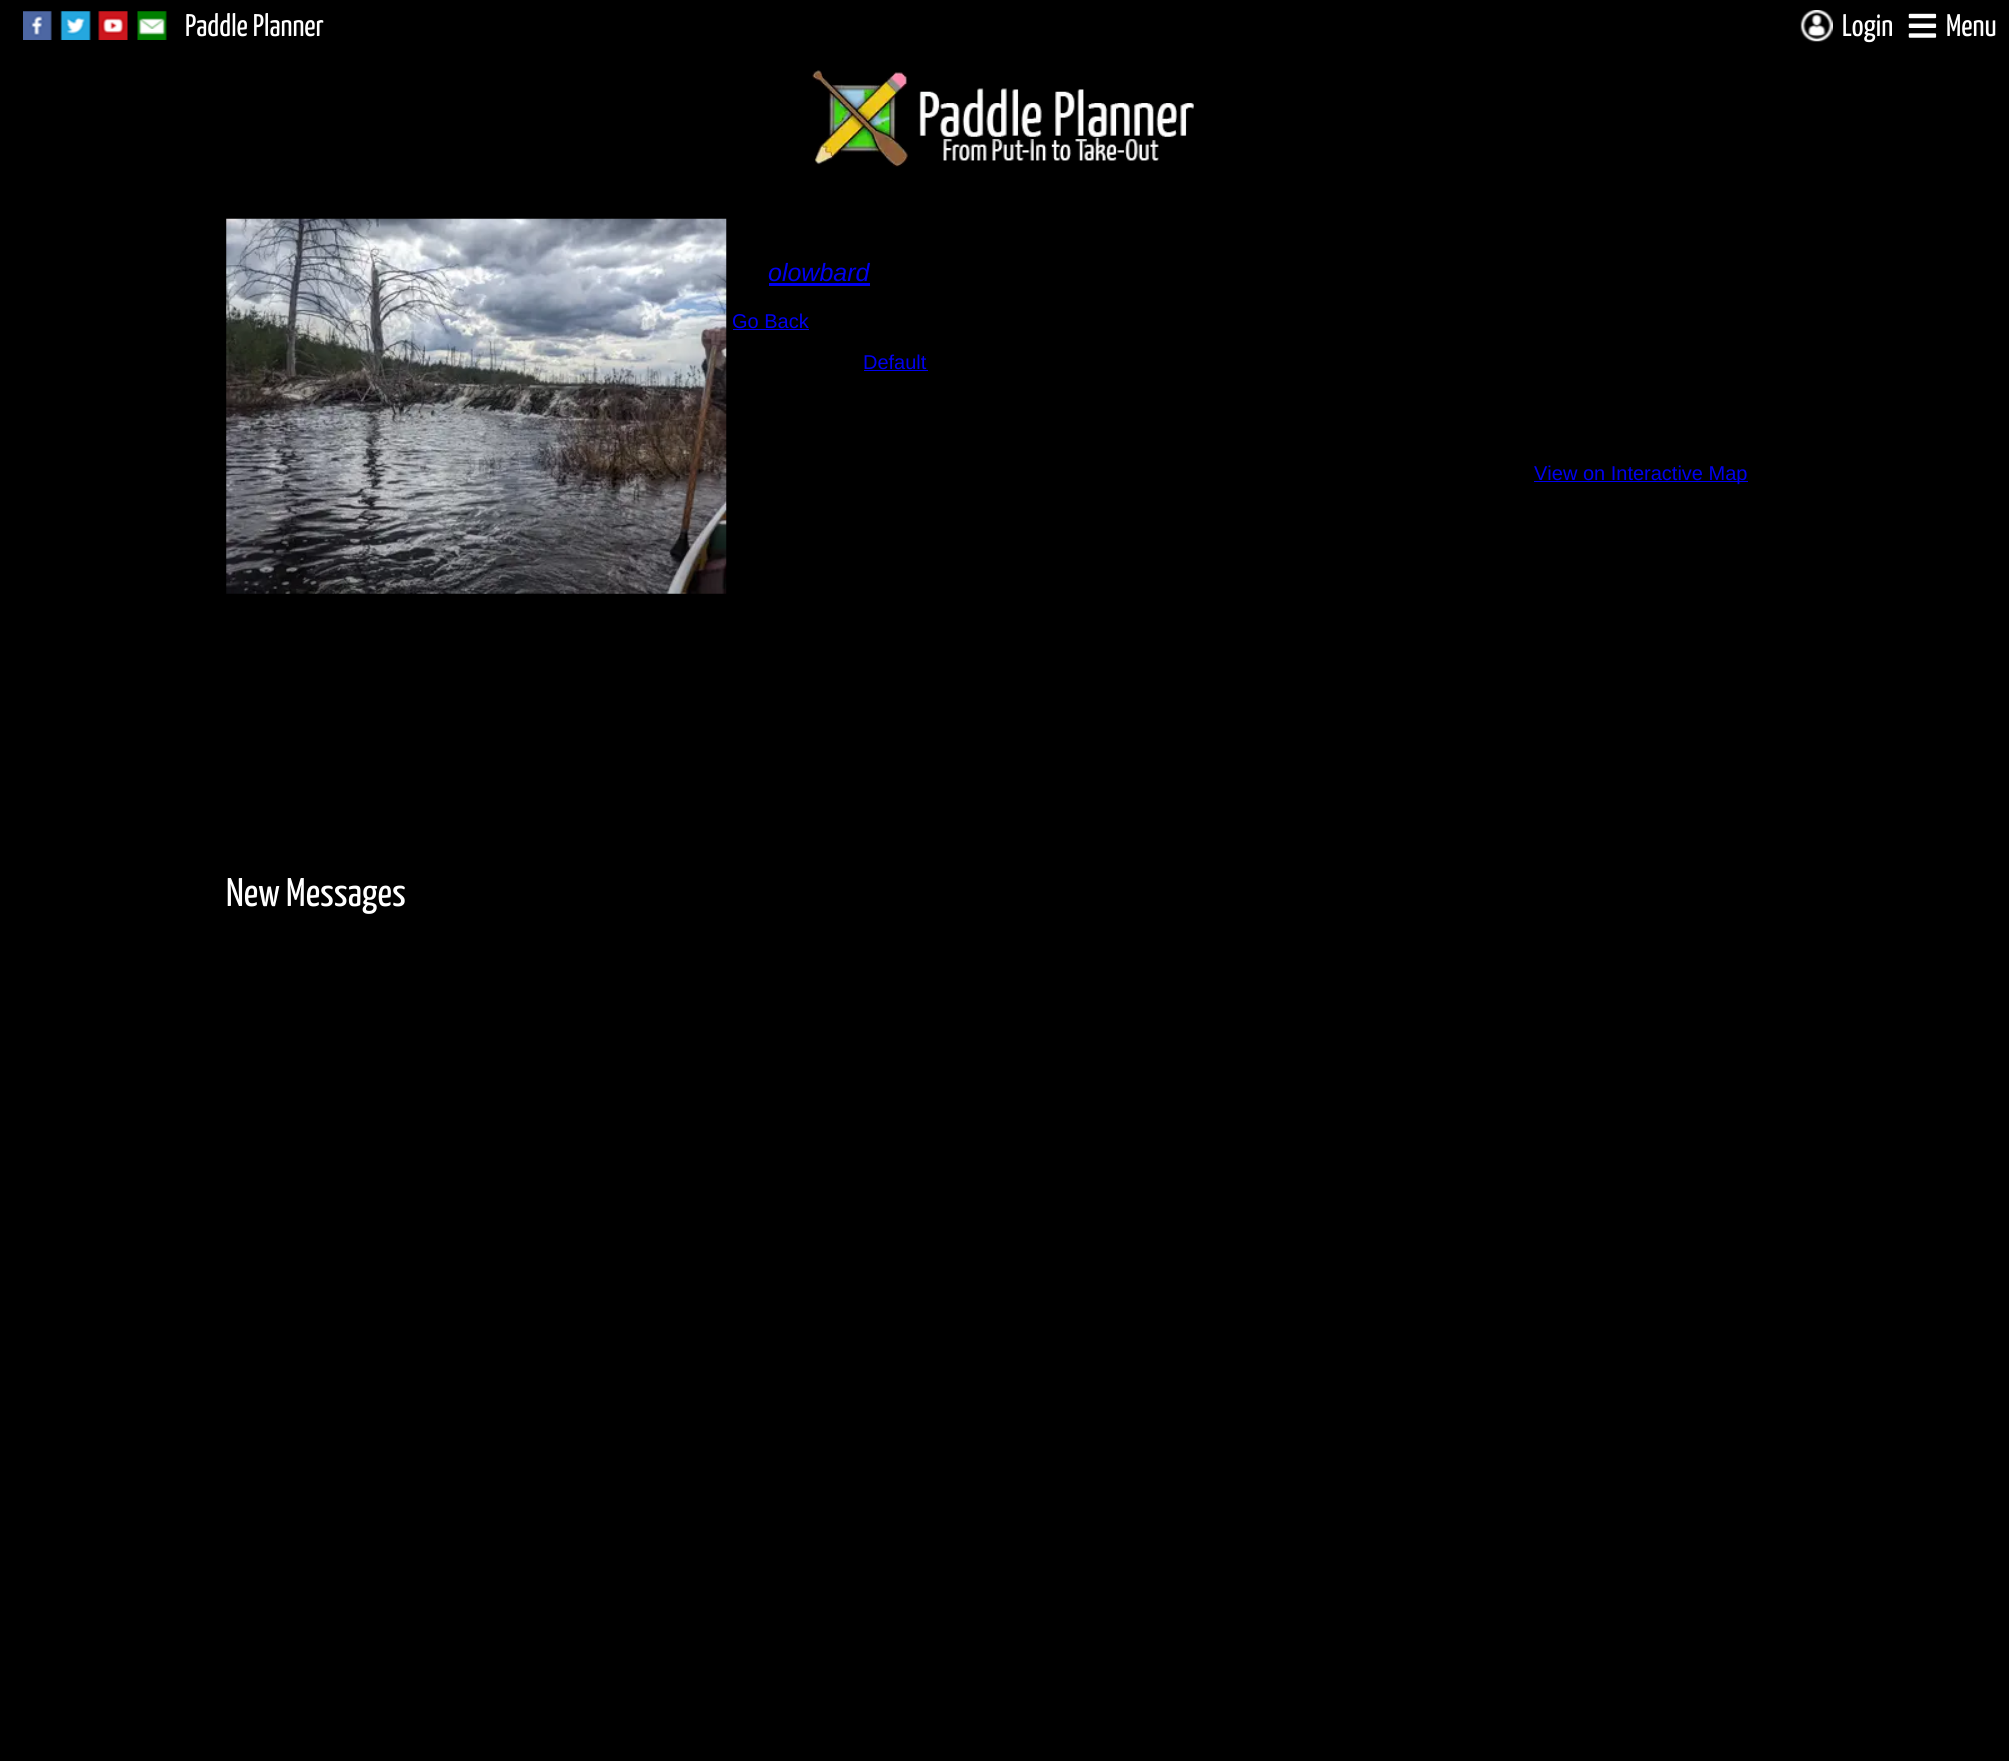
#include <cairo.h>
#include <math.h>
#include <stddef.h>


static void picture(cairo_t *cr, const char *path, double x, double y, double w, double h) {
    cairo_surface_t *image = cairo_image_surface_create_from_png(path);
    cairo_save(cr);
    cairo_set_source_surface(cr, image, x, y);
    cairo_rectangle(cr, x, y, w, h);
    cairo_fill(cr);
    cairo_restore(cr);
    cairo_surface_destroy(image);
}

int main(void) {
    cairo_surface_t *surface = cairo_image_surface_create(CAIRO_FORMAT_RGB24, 2009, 1761);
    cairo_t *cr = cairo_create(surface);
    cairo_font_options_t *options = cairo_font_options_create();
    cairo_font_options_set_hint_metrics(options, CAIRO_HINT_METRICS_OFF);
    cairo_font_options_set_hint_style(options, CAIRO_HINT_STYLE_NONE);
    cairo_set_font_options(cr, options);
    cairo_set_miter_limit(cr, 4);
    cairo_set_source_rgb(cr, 0, 0, 0);
    cairo_paint(cr);
    picture(cr, "img1.png", 23, 11, 29, 29);
    picture(cr, "img2.png", 60, 11, 31, 29);
    picture(cr, "img3.png", 98, 11, 30, 29);
    picture(cr, "img4.png", 137, 11, 30, 29);
    cairo_select_font_face(cr, "Yanone Kaffeesatz", CAIRO_FONT_SLANT_NORMAL, CAIRO_FONT_WEIGHT_NORMAL);
    cairo_set_font_size(cr, 31.25);
    cairo_set_source_rgb(cr, 1, 1, 1);
    cairo_move_to(cr, 185, 36);
    cairo_show_text(cr, "Paddle Planner");
    picture(cr, "img5.png", 1800, 10, 33, 32);
    cairo_move_to(cr, 1842, 36);
    cairo_show_text(cr, "Login");
    picture(cr, "img6.png", 1908, 13, 29, 25);
    cairo_move_to(cr, 1946, 36);
    cairo_show_text(cr, "Menu");
    picture(cr, "img7.png", 812, 70, 382, 97);
    picture(cr, "img8.png", 226, 218, 501, 376);
    cairo_select_font_face(cr, "Liberation Sans", CAIRO_FONT_SLANT_ITALIC, CAIRO_FONT_WEIGHT_NORMAL);
    cairo_set_font_size(cr, 25);
    cairo_set_source_rgb(cr, 0, 0, 0.933);
    cairo_move_to(cr, 768, 281);
    cairo_show_text(cr, "olowbard");
    cairo_rectangle(cr, 769, 283, 101, 3);
    cairo_fill(cr);
    cairo_select_font_face(cr, "Liberation Sans", CAIRO_FONT_SLANT_NORMAL, CAIRO_FONT_WEIGHT_NORMAL);
    cairo_set_font_size(cr, 20);
    cairo_move_to(cr, 732, 328);
    cairo_show_text(cr, "Go Back");
    cairo_rectangle(cr, 733, 329, 76, 1);
    cairo_fill(cr);
    cairo_move_to(cr, 863, 369);
    cairo_show_text(cr, "Default");
    cairo_rectangle(cr, 864, 370, 64, 1);
    cairo_fill(cr);
    cairo_rectangle(cr, 1534, 481, 214, 1);
    cairo_fill(cr);
    cairo_move_to(cr, 1534, 480);
    cairo_show_text(cr, "View on Interactive Map");
    cairo_select_font_face(cr, "Yanone Kaffeesatz", CAIRO_FONT_SLANT_NORMAL, CAIRO_FONT_WEIGHT_NORMAL);
    cairo_set_font_size(cr, 40);
    cairo_set_source_rgb(cr, 1, 1, 1);
    cairo_move_to(cr, 226, 906);
    cairo_show_text(cr, "New Messages");
    cairo_surface_write_to_png(surface, "page.png");
    cairo_font_options_destroy(options);
    cairo_destroy(cr);
    cairo_surface_destroy(surface);
    return 0;
}
